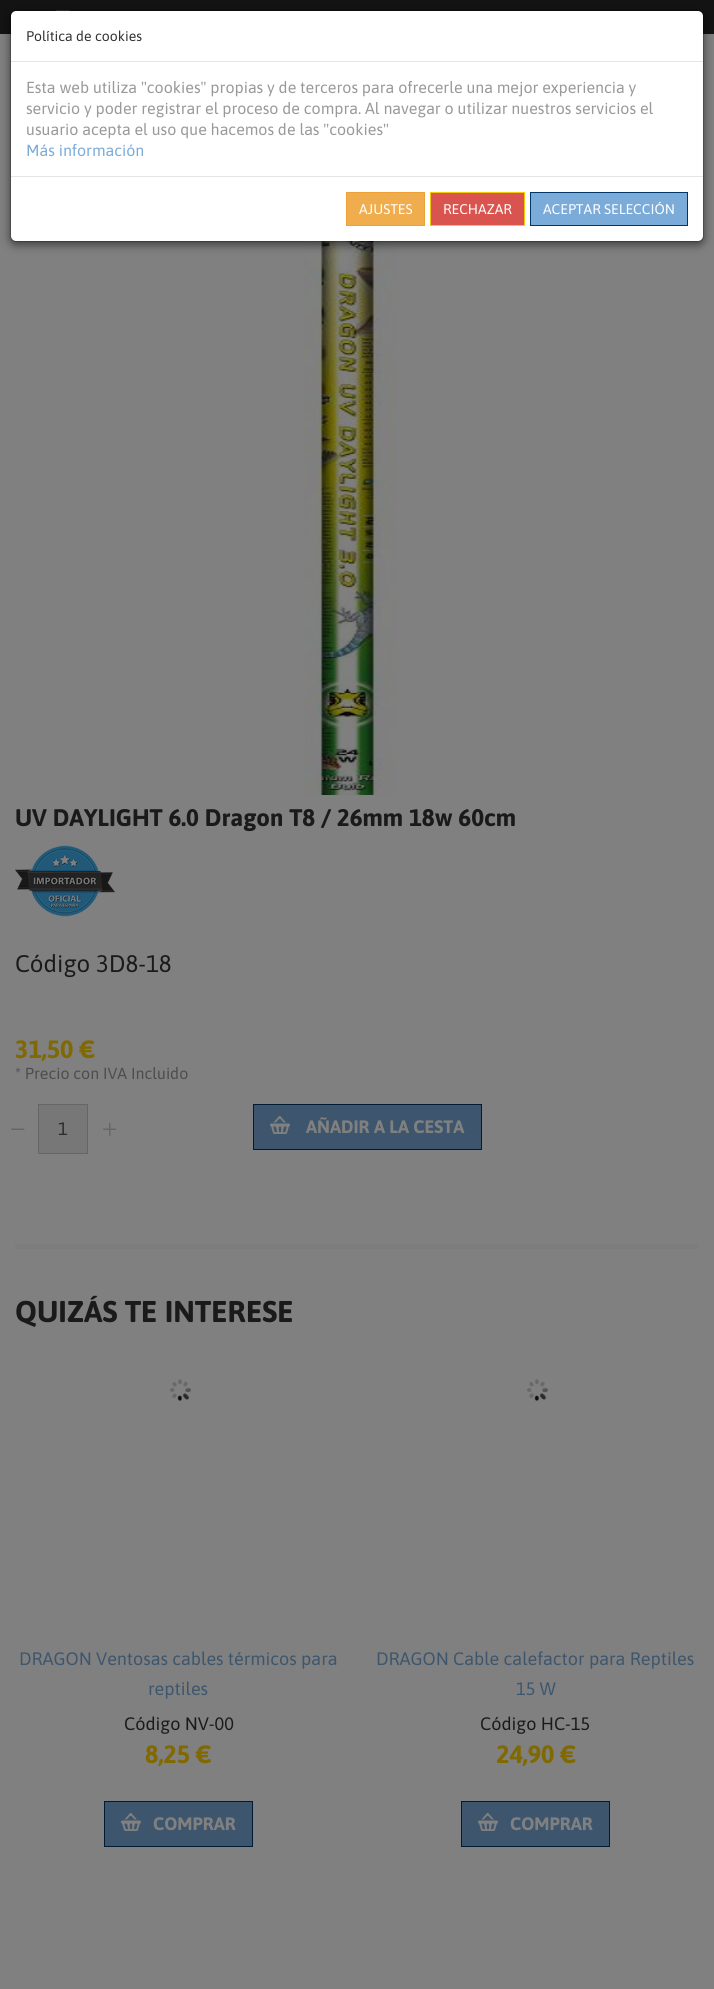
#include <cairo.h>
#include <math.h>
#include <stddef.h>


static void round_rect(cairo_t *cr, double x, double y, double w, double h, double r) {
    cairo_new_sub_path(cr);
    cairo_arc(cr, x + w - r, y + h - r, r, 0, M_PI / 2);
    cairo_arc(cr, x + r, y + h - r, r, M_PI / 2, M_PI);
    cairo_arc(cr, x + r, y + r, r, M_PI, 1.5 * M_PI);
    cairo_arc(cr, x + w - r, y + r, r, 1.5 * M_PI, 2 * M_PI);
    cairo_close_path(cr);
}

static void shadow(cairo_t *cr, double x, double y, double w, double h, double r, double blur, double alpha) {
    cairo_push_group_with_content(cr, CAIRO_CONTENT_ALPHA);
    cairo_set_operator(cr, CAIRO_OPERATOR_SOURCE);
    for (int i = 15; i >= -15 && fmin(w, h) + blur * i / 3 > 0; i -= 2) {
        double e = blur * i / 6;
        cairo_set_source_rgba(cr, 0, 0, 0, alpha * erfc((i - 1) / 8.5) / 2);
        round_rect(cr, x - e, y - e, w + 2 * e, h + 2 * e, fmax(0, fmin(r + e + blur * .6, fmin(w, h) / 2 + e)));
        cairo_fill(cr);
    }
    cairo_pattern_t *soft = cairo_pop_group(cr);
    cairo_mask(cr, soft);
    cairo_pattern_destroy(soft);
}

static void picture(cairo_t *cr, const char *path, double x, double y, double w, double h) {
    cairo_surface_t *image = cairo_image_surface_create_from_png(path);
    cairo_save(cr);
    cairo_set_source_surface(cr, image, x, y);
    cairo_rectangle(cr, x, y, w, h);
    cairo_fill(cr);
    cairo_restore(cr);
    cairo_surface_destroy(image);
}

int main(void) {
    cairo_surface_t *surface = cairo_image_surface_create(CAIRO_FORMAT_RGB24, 714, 1989);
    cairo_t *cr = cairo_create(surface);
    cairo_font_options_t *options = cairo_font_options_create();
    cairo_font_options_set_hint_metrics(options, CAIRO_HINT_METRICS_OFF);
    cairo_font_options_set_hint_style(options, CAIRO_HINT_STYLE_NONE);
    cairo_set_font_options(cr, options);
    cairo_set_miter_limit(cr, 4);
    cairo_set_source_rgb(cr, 0.502, 0.502, 0.502);
    cairo_paint(cr);
    cairo_set_source_rgb(cr, 0.078, 0.078, 0.078);
    cairo_rectangle(cr, 0, 0, 714, 34);
    cairo_fill(cr);
    picture(cr, "img1.png", 55, 10, 15, 1);
    picture(cr, "img2.png", 303, 241, 93, 554);
    cairo_set_source_rgb(cr, 0, 0, 0);
    shadow(cr, 10, 13, 694, 232, 6, 4.5, 0.5);
    cairo_set_source_rgb(cr, 1, 1, 1);
    round_rect(cr, 11, 11, 692, 230, 5);
    cairo_fill(cr);
    round_rect(cr, 10.5, 10.5, 693, 231, 5.5);
    cairo_set_source_rgba(cr, 0, 0, 0, 0.2);
    cairo_set_line_width(cr, 1);
    cairo_stroke(cr);
    cairo_set_source_rgb(cr, 0.898, 0.898, 0.898);
    cairo_rectangle(cr, 11, 61, 692, 1);
    cairo_fill(cr);
    cairo_select_font_face(cr, "Asap", CAIRO_FONT_SLANT_NORMAL, CAIRO_FONT_WEIGHT_NORMAL);
    cairo_set_font_size(cr, 14);
    cairo_set_source_rgb(cr, 0.2, 0.2, 0.2);
    cairo_move_to(cr, 26, 41);
    cairo_show_text(cr, "Política de cookies");
    cairo_set_font_size(cr, 16);
    cairo_set_source_rgb(cr, 0.6, 0.6, 0.6);
    cairo_move_to(cr, 26, 93);
    cairo_show_text(cr, "Esta web utiliza \"cookies\" propias y de terceros para ofrecerle una mejor experiencia y");
    cairo_move_to(cr, 26, 114);
    cairo_show_text(cr, "servicio y poder registrar el proceso de compra. Al navegar o utilizar nuestros servicios el");
    cairo_move_to(cr, 26, 135);
    cairo_show_text(cr, "usuario acepta el uso que hacemos de las \"cookies\"");
    cairo_set_source_rgb(cr, 0.478, 0.671, 0.851);
    cairo_move_to(cr, 26, 156);
    cairo_show_text(cr, "Más información");
    cairo_set_source_rgb(cr, 0.898, 0.898, 0.898);
    cairo_rectangle(cr, 11, 176, 692, 1);
    cairo_fill(cr);
    cairo_set_source_rgb(cr, 0.941, 0.678, 0.306);
    cairo_rectangle(cr, 346.5, 192.5, 78, 33);
    cairo_fill_preserve(cr);
    cairo_set_source_rgb(cr, 0.933, 0.635, 0.212);
    cairo_stroke(cr);
    cairo_set_font_size(cr, 14);
    cairo_set_source_rgb(cr, 1, 1, 1);
    cairo_move_to(cr, 359, 214);
    cairo_show_text(cr, "AJUSTES");
    cairo_set_source_rgb(cr, 0.851, 0.325, 0.31);
    cairo_rectangle(cr, 430.5, 192.5, 94, 33);
    cairo_fill_preserve(cr);
    cairo_set_source_rgb(cr, 0.961, 0.792, 0);
    cairo_stroke(cr);
    cairo_set_source_rgb(cr, 1, 1, 1);
    cairo_move_to(cr, 443, 214);
    cairo_show_text(cr, "RECHAZAR");
    cairo_set_source_rgb(cr, 0.478, 0.671, 0.851);
    cairo_rectangle(cr, 530.5, 192.5, 157, 33);
    cairo_fill_preserve(cr);
    cairo_set_source_rgb(cr, 0, 0.216, 0.408);
    cairo_stroke(cr);
    cairo_set_source_rgb(cr, 1, 1, 1);
    cairo_move_to(cr, 543, 214);
    cairo_show_text(cr, "ACEPTAR SELECCIÓN");
    cairo_select_font_face(cr, "Asap", CAIRO_FONT_SLANT_NORMAL, CAIRO_FONT_WEIGHT_BOLD);
    cairo_set_font_size(cr, 24);
    cairo_set_source_rgb(cr, 0.102, 0.102, 0.102);
    cairo_move_to(cr, 15, 826);
    cairo_show_text(cr, "UV DAYLIGHT 6.0 Dragon T8 / 26mm 18w 60cm");
    picture(cr, "img3.png", 15, 845, 100, 72);
    cairo_select_font_face(cr, "Asap", CAIRO_FONT_SLANT_NORMAL, CAIRO_FONT_WEIGHT_NORMAL);
    cairo_move_to(cr, 15, 972);
    cairo_show_text(cr, "Código 3D8-18");
    cairo_select_font_face(cr, "Asap", CAIRO_FONT_SLANT_NORMAL, CAIRO_FONT_WEIGHT_BOLD);
    cairo_set_font_size(cr, 25);
    cairo_set_source_rgb(cr, 0.502, 0.412, 0);
    cairo_move_to(cr, 15, 1058);
    cairo_show_text(cr, "31,50 €");
    cairo_select_font_face(cr, "Asap", CAIRO_FONT_SLANT_NORMAL, CAIRO_FONT_WEIGHT_NORMAL);
    cairo_set_font_size(cr, 16);
    cairo_set_source_rgb(cr, 0.302, 0.302, 0.302);
    cairo_move_to(cr, 15, 1079);
    cairo_show_text(cr, "* Precio con IVA Incluido");
    picture(cr, "img4.png", 11, 1128, 14, 2);
    cairo_set_source_rgb(cr, 0.467, 0.467, 0.467);
    cairo_rectangle(cr, 38.5, 1104.5, 49, 49);
    cairo_fill_preserve(cr);
    cairo_set_source_rgb(cr, 0.4, 0.4, 0.4);
    cairo_stroke(cr);
    cairo_set_font_size(cr, 18);
    cairo_set_source_rgb(cr, 0.169, 0.169, 0.169);
    cairo_move_to(cr, 58, 1135);
    cairo_show_text(cr, "1");
    picture(cr, "img5.png", 103, 1122, 14, 14);
    cairo_set_source_rgb(cr, 0.239, 0.337, 0.427);
    cairo_rectangle(cr, 253.5, 1104.5, 228, 45);
    cairo_fill_preserve(cr);
    cairo_set_source_rgb(cr, 0, 0.11, 0.204);
    cairo_stroke(cr);
    picture(cr, "img6.png", 270, 1116, 20, 18);
    cairo_select_font_face(cr, "Asap", CAIRO_FONT_SLANT_NORMAL, CAIRO_FONT_WEIGHT_BOLD);
    cairo_set_source_rgb(cr, 0.502, 0.502, 0.502);
    cairo_move_to(cr, 306, 1133);
    cairo_show_text(cr, "AÑADIR A LA CESTA");
    cairo_set_source_rgb(cr, 0.49, 0.49, 0.49);
    cairo_rectangle(cr, 15, 1244, 684, 5);
    cairo_fill(cr);
    cairo_set_font_size(cr, 30);
    cairo_set_source_rgb(cr, 0.102, 0.102, 0.102);
    cairo_move_to(cr, 15, 1322);
    cairo_show_text(cr, "QUIZÁS TE INTERESE");
    picture(cr, "img7.png", 170, 1379, 21, 22);
    cairo_select_font_face(cr, "Asap", CAIRO_FONT_SLANT_NORMAL, CAIRO_FONT_WEIGHT_NORMAL);
    cairo_set_font_size(cr, 18);
    cairo_set_source_rgb(cr, 0.239, 0.337, 0.427);
    cairo_move_to(cr, 19, 1665);
    cairo_show_text(cr, "DRAGON Ventosas cables térmicos para");
    cairo_move_to(cr, 148, 1695);
    cairo_show_text(cr, "reptiles");
    cairo_set_source_rgb(cr, 0.102, 0.102, 0.102);
    cairo_move_to(cr, 124, 1730);
    cairo_show_text(cr, "Código NV-00");
    cairo_select_font_face(cr, "Asap", CAIRO_FONT_SLANT_NORMAL, CAIRO_FONT_WEIGHT_BOLD);
    cairo_set_font_size(cr, 25);
    cairo_set_source_rgb(cr, 0.502, 0.412, 0);
    cairo_move_to(cr, 145, 1763);
    cairo_show_text(cr, "8,25 €");
    cairo_set_source_rgb(cr, 0.239, 0.337, 0.427);
    cairo_rectangle(cr, 104.5, 1801.5, 148, 45);
    cairo_fill_preserve(cr);
    cairo_set_source_rgb(cr, 0, 0.11, 0.204);
    cairo_stroke(cr);
    picture(cr, "img6.png", 121, 1813, 20, 18);
    cairo_set_font_size(cr, 18);
    cairo_set_source_rgb(cr, 0.502, 0.502, 0.502);
    cairo_move_to(cr, 153, 1830);
    cairo_show_text(cr, "COMPRAR");
    picture(cr, "img7.png", 527, 1379, 21, 22);
    cairo_select_font_face(cr, "Asap", CAIRO_FONT_SLANT_NORMAL, CAIRO_FONT_WEIGHT_NORMAL);
    cairo_set_source_rgb(cr, 0.239, 0.337, 0.427);
    cairo_move_to(cr, 376, 1665);
    cairo_show_text(cr, "DRAGON Cable calefactor para Reptiles");
    cairo_move_to(cr, 516, 1695);
    cairo_show_text(cr, "15 W");
    cairo_set_source_rgb(cr, 0.102, 0.102, 0.102);
    cairo_move_to(cr, 480, 1730);
    cairo_show_text(cr, "Código HC-15");
    cairo_select_font_face(cr, "Asap", CAIRO_FONT_SLANT_NORMAL, CAIRO_FONT_WEIGHT_BOLD);
    cairo_set_font_size(cr, 25);
    cairo_set_source_rgb(cr, 0.502, 0.412, 0);
    cairo_move_to(cr, 496, 1763);
    cairo_show_text(cr, "24,90 €");
    cairo_set_source_rgb(cr, 0.239, 0.337, 0.427);
    cairo_rectangle(cr, 461.5, 1801.5, 148, 45);
    cairo_fill_preserve(cr);
    cairo_set_source_rgb(cr, 0, 0.11, 0.204);
    cairo_stroke(cr);
    picture(cr, "img6.png", 478, 1813, 20, 18);
    cairo_set_font_size(cr, 18);
    cairo_set_source_rgb(cr, 0.502, 0.502, 0.502);
    cairo_move_to(cr, 510, 1830);
    cairo_show_text(cr, "COMPRAR");
    cairo_surface_write_to_png(surface, "page.png");
    cairo_font_options_destroy(options);
    cairo_destroy(cr);
    cairo_surface_destroy(surface);
    return 0;
}
